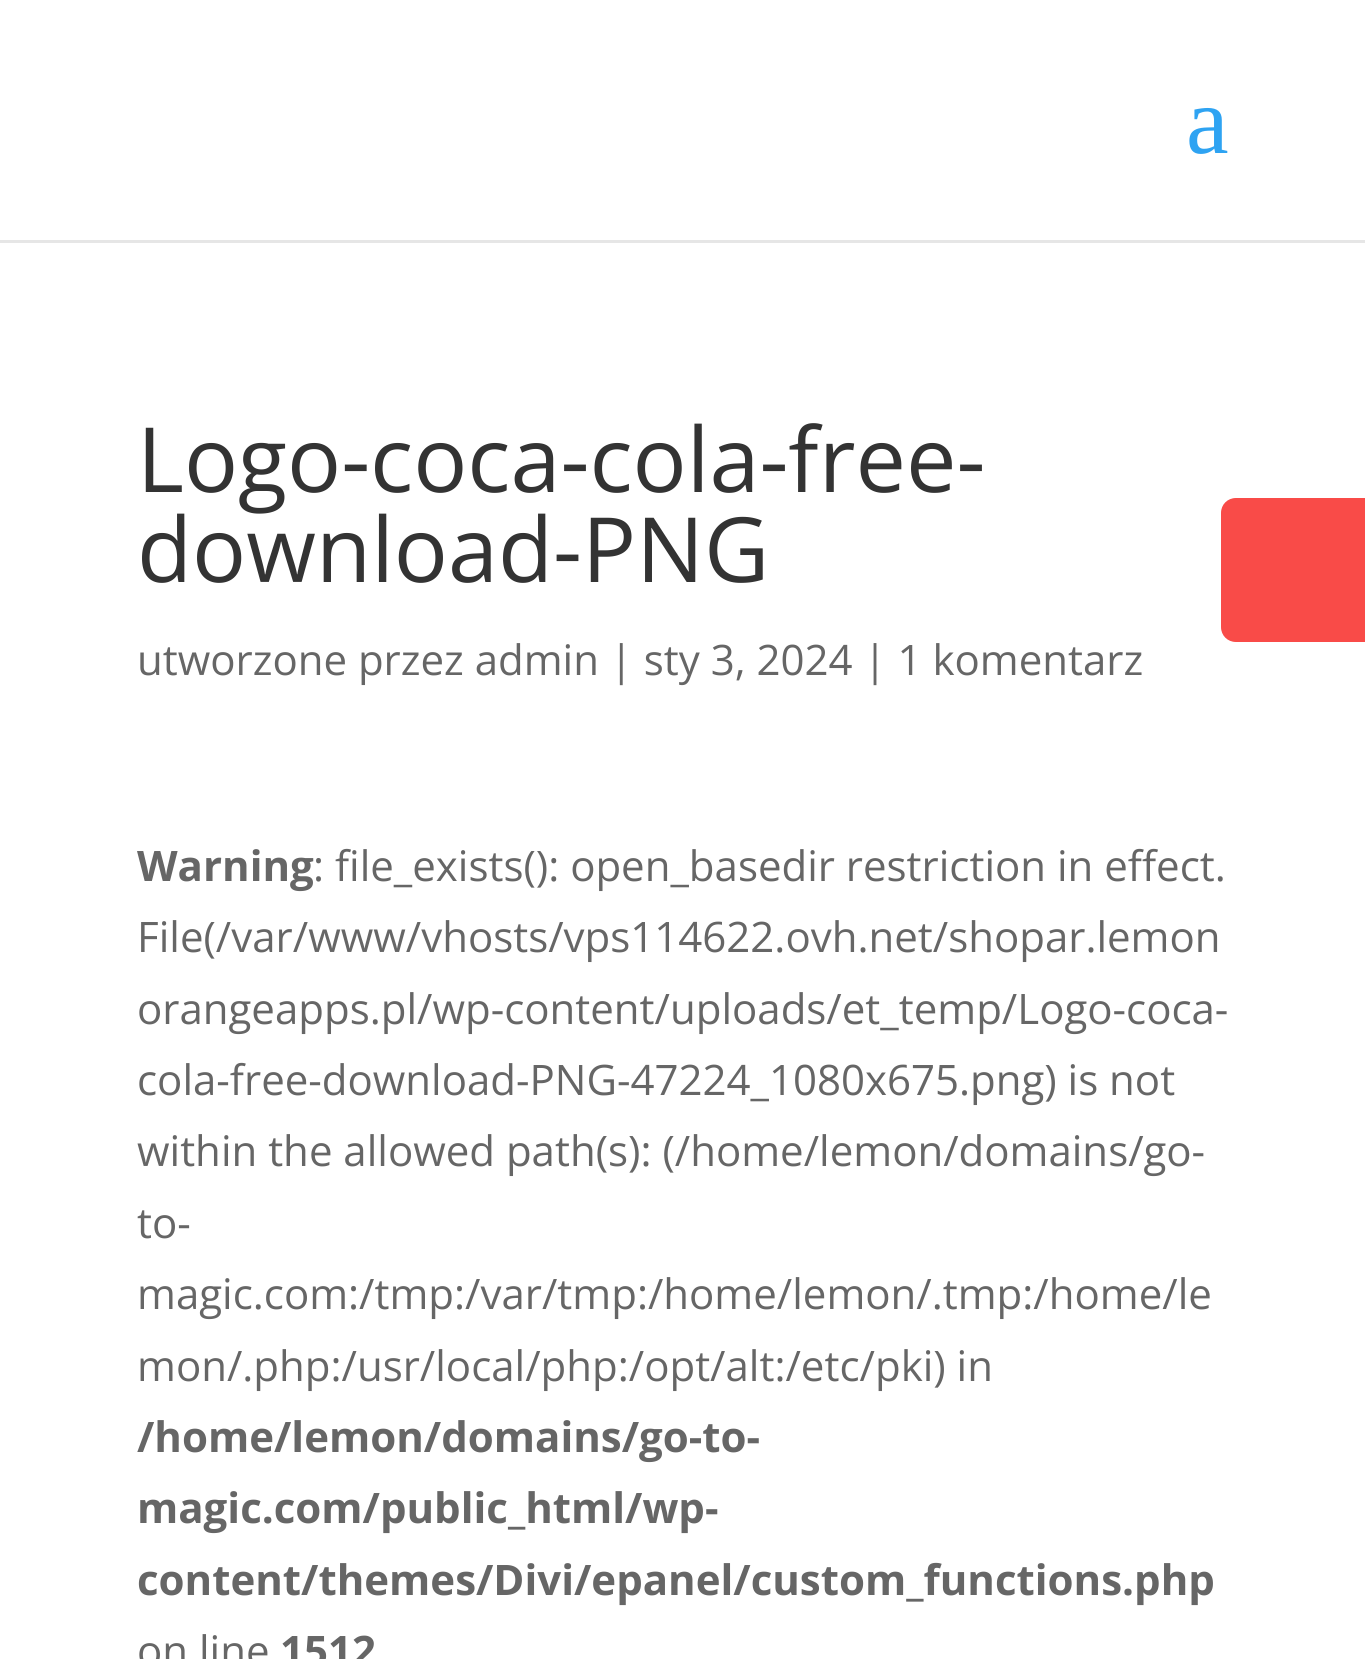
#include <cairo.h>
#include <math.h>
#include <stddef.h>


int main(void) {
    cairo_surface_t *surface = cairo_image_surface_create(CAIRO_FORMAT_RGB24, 1365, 1659);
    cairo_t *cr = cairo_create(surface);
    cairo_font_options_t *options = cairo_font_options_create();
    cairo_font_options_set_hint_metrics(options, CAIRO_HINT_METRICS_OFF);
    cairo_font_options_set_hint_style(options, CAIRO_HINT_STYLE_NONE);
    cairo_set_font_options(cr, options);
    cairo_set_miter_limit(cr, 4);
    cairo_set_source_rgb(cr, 1, 1, 1);
    cairo_paint(cr);
    cairo_set_source_rgb(cr, 0.902, 0.902, 0.902);
    cairo_rectangle(cr, 0, 240, 1365, 3);
    cairo_fill(cr);
    cairo_select_font_face(cr, "Liberation Serif", CAIRO_FONT_SLANT_NORMAL, CAIRO_FONT_WEIGHT_NORMAL);
    cairo_set_font_size(cr, 96);
    cairo_set_source_rgb(cr, 0.18, 0.639, 0.949);
    cairo_move_to(cr, 1186, 153);
    cairo_show_text(cr, "a");
    cairo_select_font_face(cr, "Open Sans", CAIRO_FONT_SLANT_NORMAL, CAIRO_FONT_WEIGHT_NORMAL);
    cairo_set_font_size(cr, 90);
    cairo_set_source_rgb(cr, 0.2, 0.2, 0.2);
    cairo_move_to(cr, 137, 492);
    cairo_show_text(cr, "Logo-coca-cola-free-");
    cairo_move_to(cr, 137, 582);
    cairo_show_text(cr, "download-PNG");
    cairo_set_font_size(cr, 42);
    cairo_set_source_rgb(cr, 0.4, 0.4, 0.4);
    cairo_move_to(cr, 137, 675);
    cairo_show_text(cr, "utworzone przez admin | sty 3, 2024 | 1 komentarz");
    cairo_select_font_face(cr, "Open Sans", CAIRO_FONT_SLANT_NORMAL, CAIRO_FONT_WEIGHT_BOLD);
    cairo_move_to(cr, 137, 881);
    cairo_show_text(cr, "Warning");
    cairo_select_font_face(cr, "Open Sans", CAIRO_FONT_SLANT_NORMAL, CAIRO_FONT_WEIGHT_NORMAL);
    cairo_move_to(cr, 313, 881);
    cairo_show_text(cr, ": file_exists(): open_basedir restriction in effect.");
    cairo_move_to(cr, 137, 952);
    cairo_show_text(cr, "File(/var/www/vhosts/vps114622.ovh.net/shopar.lemon");
    cairo_move_to(cr, 137, 1024);
    cairo_show_text(cr, "orangeapps.pl/wp-content/uploads/et_temp/Logo-coca-");
    cairo_move_to(cr, 137, 1095);
    cairo_show_text(cr, "cola-free-download-PNG-47224_1080x675.png) is not");
    cairo_move_to(cr, 137, 1166);
    cairo_show_text(cr, "within the allowed path(s): (/home/lemon/domains/go-");
    cairo_move_to(cr, 137, 1238);
    cairo_show_text(cr, "to-");
    cairo_move_to(cr, 137, 1309);
    cairo_show_text(cr, "magic.com:/tmp:/var/tmp:/home/lemon/.tmp:/home/le");
    cairo_move_to(cr, 137, 1381);
    cairo_show_text(cr, "mon/.php:/usr/local/php:/opt/alt:/etc/pki) in");
    cairo_select_font_face(cr, "Open Sans", CAIRO_FONT_SLANT_NORMAL, CAIRO_FONT_WEIGHT_BOLD);
    cairo_move_to(cr, 137, 1452);
    cairo_show_text(cr, "/home/lemon/domains/go-to-");
    cairo_move_to(cr, 137, 1523);
    cairo_show_text(cr, "magic.com/public_html/wp-");
    cairo_move_to(cr, 137, 1595);
    cairo_show_text(cr, "content/themes/Divi/epanel/custom_functions.php");
    cairo_select_font_face(cr, "Open Sans", CAIRO_FONT_SLANT_NORMAL, CAIRO_FONT_WEIGHT_NORMAL);
    cairo_move_to(cr, 137, 1666);
    cairo_show_text(cr, "on line");
    cairo_select_font_face(cr, "Open Sans", CAIRO_FONT_SLANT_NORMAL, CAIRO_FONT_WEIGHT_BOLD);
    cairo_move_to(cr, 280, 1666);
    cairo_show_text(cr, "1512");
    cairo_set_source_rgb(cr, 0.973, 0.294, 0.282);
    cairo_new_path(cr);
    cairo_move_to(cr, 1236, 498);
    cairo_line_to(cr, 1365, 498);
    cairo_line_to(cr, 1365, 642);
    cairo_line_to(cr, 1236, 642);
    cairo_curve_to(cr, 1227.5, 642, 1221, 635.5, 1221, 627);
    cairo_line_to(cr, 1221, 513);
    cairo_curve_to(cr, 1221, 504.5, 1227.5, 498, 1236, 498);
    cairo_close_path(cr);
    cairo_fill(cr);
    cairo_surface_write_to_png(surface, "page.png");
    cairo_font_options_destroy(options);
    cairo_destroy(cr);
    cairo_surface_destroy(surface);
    return 0;
}
